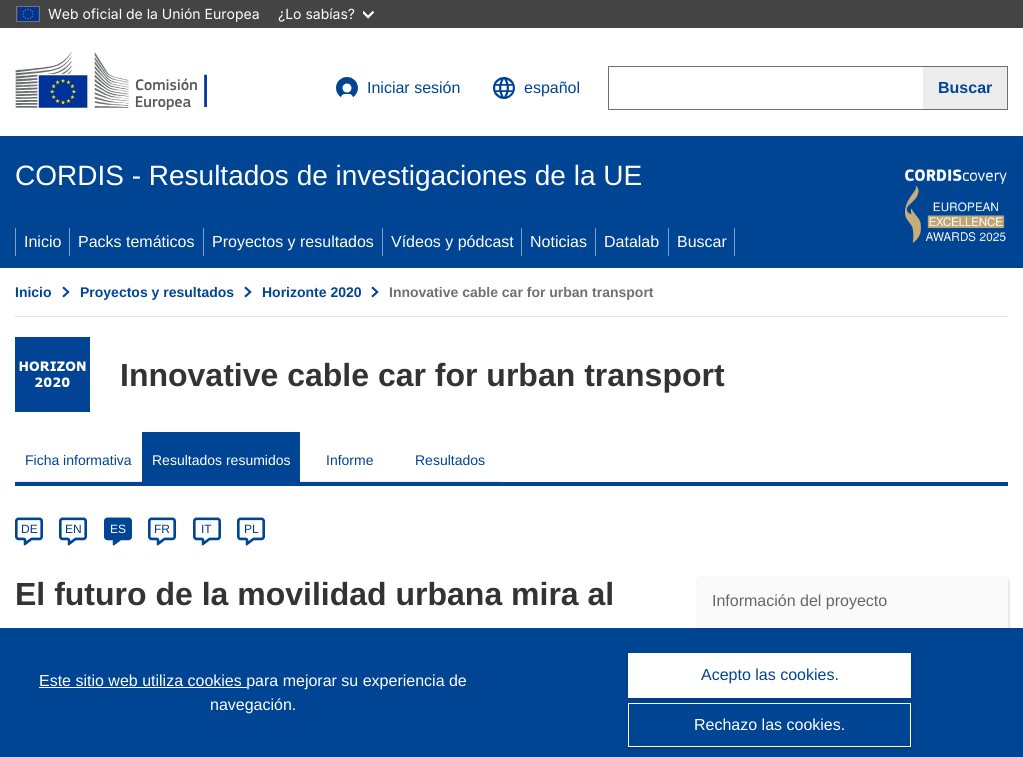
#include <cairo.h>
#include <math.h>
#include <stddef.h>


static void round_rect(cairo_t *cr, double x, double y, double w, double h, double r) {
    cairo_new_sub_path(cr);
    cairo_arc(cr, x + w - r, y + h - r, r, 0, M_PI / 2);
    cairo_arc(cr, x + r, y + h - r, r, M_PI / 2, M_PI);
    cairo_arc(cr, x + r, y + r, r, M_PI, 1.5 * M_PI);
    cairo_arc(cr, x + w - r, y + r, r, 1.5 * M_PI, 2 * M_PI);
    cairo_close_path(cr);
}

static void shadow(cairo_t *cr, double x, double y, double w, double h, double r, double blur, double alpha) {
    cairo_push_group_with_content(cr, CAIRO_CONTENT_ALPHA);
    cairo_set_operator(cr, CAIRO_OPERATOR_SOURCE);
    for (int i = 15; i >= -15 && fmin(w, h) + blur * i / 3 > 0; i -= 2) {
        double e = blur * i / 6;
        cairo_set_source_rgba(cr, 0, 0, 0, alpha * erfc((i - 1) / 8.5) / 2);
        round_rect(cr, x - e, y - e, w + 2 * e, h + 2 * e, fmax(0, fmin(r + e + blur * .6, fmin(w, h) / 2 + e)));
        cairo_fill(cr);
    }
    cairo_pattern_t *soft = cairo_pop_group(cr);
    cairo_mask(cr, soft);
    cairo_pattern_destroy(soft);
}

static void picture(cairo_t *cr, const char *path, double x, double y, double w, double h) {
    cairo_surface_t *image = cairo_image_surface_create_from_png(path);
    cairo_save(cr);
    cairo_set_source_surface(cr, image, x, y);
    cairo_rectangle(cr, x, y, w, h);
    cairo_fill(cr);
    cairo_restore(cr);
    cairo_surface_destroy(image);
}

int main(void) {
    cairo_surface_t *surface = cairo_image_surface_create(CAIRO_FORMAT_RGB24, 1023, 757);
    cairo_t *cr = cairo_create(surface);
    cairo_font_options_t *options = cairo_font_options_create();
    cairo_font_options_set_hint_metrics(options, CAIRO_HINT_METRICS_OFF);
    cairo_font_options_set_hint_style(options, CAIRO_HINT_STYLE_NONE);
    cairo_set_font_options(cr, options);
    cairo_set_miter_limit(cr, 4);
    cairo_set_source_rgb(cr, 1, 1, 1);
    cairo_paint(cr);
    cairo_set_source_rgb(cr, 0.267, 0.267, 0.267);
    cairo_rectangle(cr, 0, 0, 1023, 28);
    cairo_fill(cr);
    cairo_rectangle(cr, 16.5, 6.5, 23, 15);
    cairo_set_source_rgb(cr, 0.451, 0.451, 0.451);
    cairo_set_line_width(cr, 1);
    cairo_stroke(cr);
    picture(cr, "img1.png", 18, 7, 21, 14);
    cairo_select_font_face(cr, "Inter", CAIRO_FONT_SLANT_NORMAL, CAIRO_FONT_WEIGHT_NORMAL);
    cairo_set_font_size(cr, 14);
    cairo_set_source_rgb(cr, 1, 1, 1);
    cairo_move_to(cr, 48, 19);
    cairo_show_text(cr, "Web oficial de la Unión Europea");
    cairo_move_to(cr, 278, 19);
    cairo_show_text(cr, "¿Lo sabías?");
    picture(cr, "img2.png", 363, 11, 12, 8);
    picture(cr, "img3.png", 15, 52, 192, 58);
    picture(cr, "img4.png", 336, 77, 22, 21);
    cairo_select_font_face(cr, "Liberation Sans", CAIRO_FONT_SLANT_NORMAL, CAIRO_FONT_WEIGHT_NORMAL);
    cairo_set_font_size(cr, 16);
    cairo_set_source_rgb(cr, 0, 0.267, 0.58);
    cairo_move_to(cr, 367, 93);
    cairo_show_text(cr, "Iniciar sesión");
    picture(cr, "img5.png", 493, 77, 22, 22);
    cairo_move_to(cr, 524, 93);
    cairo_show_text(cr, "español");
    cairo_set_source_rgb(cr, 0.439, 0.439, 0.439);
    cairo_rectangle(cr, 608, 66, 400, 1);
    cairo_fill(cr);
    cairo_rectangle(cr, 608, 109, 315, 1);
    cairo_fill(cr);
    cairo_rectangle(cr, 608, 66, 1, 44);
    cairo_fill(cr);
    cairo_set_source_rgb(cr, 0.922, 0.922, 0.922);
    cairo_rectangle(cr, 923, 67, 84, 42);
    cairo_fill(cr);
    cairo_set_source_rgb(cr, 0.439, 0.439, 0.439);
    cairo_rectangle(cr, 1007, 66, 1, 44);
    cairo_fill(cr);
    cairo_rectangle(cr, 923, 109, 85, 1);
    cairo_fill(cr);
    cairo_select_font_face(cr, "Liberation Sans", CAIRO_FONT_SLANT_NORMAL, CAIRO_FONT_WEIGHT_BOLD);
    cairo_set_source_rgb(cr, 0, 0.267, 0.58);
    cairo_move_to(cr, 938, 93);
    cairo_show_text(cr, "Buscar");
    cairo_rectangle(cr, 0, 136, 1023, 132);
    cairo_fill(cr);
    cairo_select_font_face(cr, "Liberation Sans", CAIRO_FONT_SLANT_NORMAL, CAIRO_FONT_WEIGHT_NORMAL);
    cairo_set_font_size(cr, 28);
    cairo_set_source_rgb(cr, 1, 1, 1);
    cairo_move_to(cr, 15, 185);
    cairo_show_text(cr, "CORDIS - Resultados de investigaciones de la UE");
    picture(cr, "img6.png", 905, 169, 102, 74);
    cairo_set_source_rgb(cr, 0.498, 0.631, 0.788);
    cairo_rectangle(cr, 15, 228, 1, 28);
    cairo_fill(cr);
    cairo_set_font_size(cr, 16);
    cairo_set_source_rgb(cr, 1, 1, 1);
    cairo_move_to(cr, 24, 247);
    cairo_show_text(cr, "Inicio");
    cairo_set_source_rgb(cr, 0.498, 0.631, 0.788);
    cairo_rectangle(cr, 69, 228, 1, 28);
    cairo_fill(cr);
    cairo_set_source_rgb(cr, 1, 1, 1);
    cairo_move_to(cr, 78, 247);
    cairo_show_text(cr, "Packs temáticos");
    cairo_set_source_rgb(cr, 0.498, 0.631, 0.788);
    cairo_rectangle(cr, 203, 228, 1, 28);
    cairo_fill(cr);
    cairo_set_source_rgb(cr, 1, 1, 1);
    cairo_move_to(cr, 212, 247);
    cairo_show_text(cr, "Proyectos y resultados");
    cairo_set_source_rgb(cr, 0.498, 0.631, 0.788);
    cairo_rectangle(cr, 382, 228, 1, 28);
    cairo_fill(cr);
    cairo_set_source_rgb(cr, 1, 1, 1);
    cairo_move_to(cr, 391, 247);
    cairo_show_text(cr, "Vídeos y pódcast");
    cairo_set_source_rgb(cr, 0.498, 0.631, 0.788);
    cairo_rectangle(cr, 521, 228, 1, 28);
    cairo_fill(cr);
    cairo_set_source_rgb(cr, 1, 1, 1);
    cairo_move_to(cr, 530, 247);
    cairo_show_text(cr, "Noticias");
    cairo_set_source_rgb(cr, 0.498, 0.631, 0.788);
    cairo_rectangle(cr, 595, 228, 1, 28);
    cairo_fill(cr);
    cairo_set_source_rgb(cr, 1, 1, 1);
    cairo_move_to(cr, 604, 247);
    cairo_show_text(cr, "Datalab");
    cairo_set_source_rgb(cr, 0.498, 0.631, 0.788);
    cairo_rectangle(cr, 668, 228, 1, 28);
    cairo_fill(cr);
    cairo_set_source_rgb(cr, 1, 1, 1);
    cairo_move_to(cr, 677, 247);
    cairo_show_text(cr, "Buscar");
    cairo_set_source_rgb(cr, 0.498, 0.631, 0.788);
    cairo_rectangle(cr, 734, 228, 1, 28);
    cairo_fill(cr);
    cairo_set_source_rgb(cr, 0.89, 0.89, 0.89);
    cairo_rectangle(cr, 15, 316, 993, 1);
    cairo_fill(cr);
    cairo_select_font_face(cr, "Liberation Sans", CAIRO_FONT_SLANT_NORMAL, CAIRO_FONT_WEIGHT_BOLD);
    cairo_set_font_size(cr, 14);
    cairo_set_source_rgb(cr, 0, 0.267, 0.58);
    cairo_move_to(cr, 15, 297);
    cairo_show_text(cr, "Inicio");
    picture(cr, "img7.png", 62, 286, 8, 12);
    cairo_move_to(cr, 80, 297);
    cairo_show_text(cr, "Proyectos y resultados");
    picture(cr, "img7.png", 244, 286, 8, 12);
    cairo_move_to(cr, 262, 297);
    cairo_show_text(cr, "Horizonte 2020");
    picture(cr, "img7.png", 371, 286, 8, 12);
    cairo_set_source_rgb(cr, 0.439, 0.439, 0.439);
    cairo_move_to(cr, 389, 297);
    cairo_show_text(cr, "Innovative cable car for urban transport");
    picture(cr, "img8.png", 15, 337, 75, 75);
    cairo_set_font_size(cr, 32);
    cairo_set_source_rgb(cr, 0.2, 0.2, 0.2);
    cairo_move_to(cr, 120, 386);
    cairo_show_text(cr, "Innovative cable car for urban transport");
    cairo_set_source_rgb(cr, 0, 0.267, 0.58);
    cairo_rectangle(cr, 15, 482, 993, 4);
    cairo_fill(cr);
    cairo_set_source_rgb(cr, 0.925, 0.925, 0.925);
    cairo_rectangle(cr, 15, 481, 127, 1);
    cairo_fill(cr);
    cairo_select_font_face(cr, "Liberation Sans", CAIRO_FONT_SLANT_NORMAL, CAIRO_FONT_WEIGHT_NORMAL);
    cairo_set_font_size(cr, 14);
    cairo_set_source_rgb(cr, 0, 0.267, 0.58);
    cairo_move_to(cr, 25, 465);
    cairo_show_text(cr, "Ficha informativa");
    cairo_rectangle(cr, 142, 432, 158, 50);
    cairo_fill(cr);
    cairo_set_source_rgb(cr, 1, 1, 1);
    cairo_move_to(cr, 152, 465);
    cairo_show_text(cr, "Resultados resumidos");
    cairo_set_source_rgb(cr, 0.925, 0.925, 0.925);
    cairo_rectangle(cr, 300, 481, 200, 1);
    cairo_fill(cr);
    cairo_set_source_rgb(cr, 0, 0.267, 0.58);
    cairo_move_to(cr, 326, 465);
    cairo_show_text(cr, "Informe");
    cairo_move_to(cr, 415, 465);
    cairo_show_text(cr, "Resultados");
    picture(cr, "img9.png", 15, 517, 28, 29);
    cairo_set_font_size(cr, 12);
    cairo_set_source_rgb(cr, 0, 0.22, 0.482);
    cairo_move_to(cr, 21, 533);
    cairo_show_text(cr, "DE");
    picture(cr, "img9.png", 59, 517, 28, 29);
    cairo_move_to(cr, 65, 533);
    cairo_show_text(cr, "EN");
    picture(cr, "img10.png", 104, 517, 28, 29);
    cairo_set_source_rgb(cr, 1, 1, 1);
    cairo_move_to(cr, 110, 533);
    cairo_show_text(cr, "ES");
    picture(cr, "img9.png", 148, 517, 28, 29);
    cairo_set_source_rgb(cr, 0, 0.22, 0.482);
    cairo_move_to(cr, 154, 533);
    cairo_show_text(cr, "FR");
    picture(cr, "img9.png", 193, 517, 28, 29);
    cairo_move_to(cr, 201, 533);
    cairo_show_text(cr, "IT");
    picture(cr, "img9.png", 237, 517, 28, 29);
    cairo_move_to(cr, 244, 533);
    cairo_show_text(cr, "PL");
    cairo_select_font_face(cr, "Liberation Sans", CAIRO_FONT_SLANT_NORMAL, CAIRO_FONT_WEIGHT_BOLD);
    cairo_set_font_size(cr, 32);
    cairo_set_source_rgb(cr, 0.2, 0.2, 0.2);
    cairo_move_to(cr, 15, 605);
    cairo_show_text(cr, "El futuro de la movilidad urbana mira al");
    cairo_set_source_rgb(cr, 0, 0, 0);
    shadow(cr, 698, 578, 311, 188, 4, 1.5, 0.15);
    cairo_set_source_rgb(cr, 0.98, 0.98, 0.98);
    round_rect(cr, 697, 576, 311, 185, 4);
    cairo_fill(cr);
    cairo_select_font_face(cr, "Liberation Sans", CAIRO_FONT_SLANT_NORMAL, CAIRO_FONT_WEIGHT_NORMAL);
    cairo_set_font_size(cr, 16);
    cairo_set_source_rgb(cr, 0.4, 0.4, 0.4);
    cairo_move_to(cr, 712, 606);
    cairo_show_text(cr, "Información del proyecto");
    cairo_set_source_rgb(cr, 0, 0.267, 0.58);
    cairo_rectangle(cr, 0, 628, 1023, 129);
    cairo_fill(cr);
    cairo_set_source_rgb(cr, 1, 1, 1);
    cairo_rectangle(cr, 39, 687, 208, 1);
    cairo_fill(cr);
    cairo_move_to(cr, 39, 686);
    cairo_show_text(cr, "Este sitio web utiliza cookies para mejorar su experiencia de");
    cairo_move_to(cr, 210, 710);
    cairo_show_text(cr, "navegación.");
    cairo_set_source_rgb(cr, 0, 0, 0);
    shadow(cr, 629, 655, 283, 45, 0, 1.5, 0.15);
    cairo_set_source_rgb(cr, 1, 1, 1);
    cairo_rectangle(cr, 628, 653, 283, 45);
    cairo_fill(cr);
    cairo_set_source_rgb(cr, 0, 0.267, 0.58);
    cairo_move_to(cr, 701, 680);
    cairo_show_text(cr, "Acepto las cookies.");
    cairo_save(cr);
    cairo_set_fill_rule(cr, CAIRO_FILL_RULE_EVEN_ODD);
    cairo_new_path(cr);
    cairo_move_to(cr, 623, 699);
    cairo_line_to(cr, 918, 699);
    cairo_line_to(cr, 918, 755);
    cairo_line_to(cr, 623, 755);
    cairo_close_path(cr);
    cairo_move_to(cr, 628, 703);
    cairo_line_to(cr, 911, 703);
    cairo_line_to(cr, 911, 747);
    cairo_line_to(cr, 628, 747);
    cairo_close_path(cr);
    cairo_clip(cr);
    cairo_set_source_rgb(cr, 0, 0, 0);
    shadow(cr, 629, 705, 283, 44, 0, 1.5, 0.15);
    cairo_restore(cr);
    cairo_rectangle(cr, 628.5, 703.5, 282, 43);
    cairo_set_source_rgb(cr, 1, 1, 1);
    cairo_stroke(cr);
    cairo_move_to(cr, 694, 730);
    cairo_show_text(cr, "Rechazo las cookies.");
    cairo_surface_write_to_png(surface, "page.png");
    cairo_font_options_destroy(options);
    cairo_destroy(cr);
    cairo_surface_destroy(surface);
    return 0;
}
